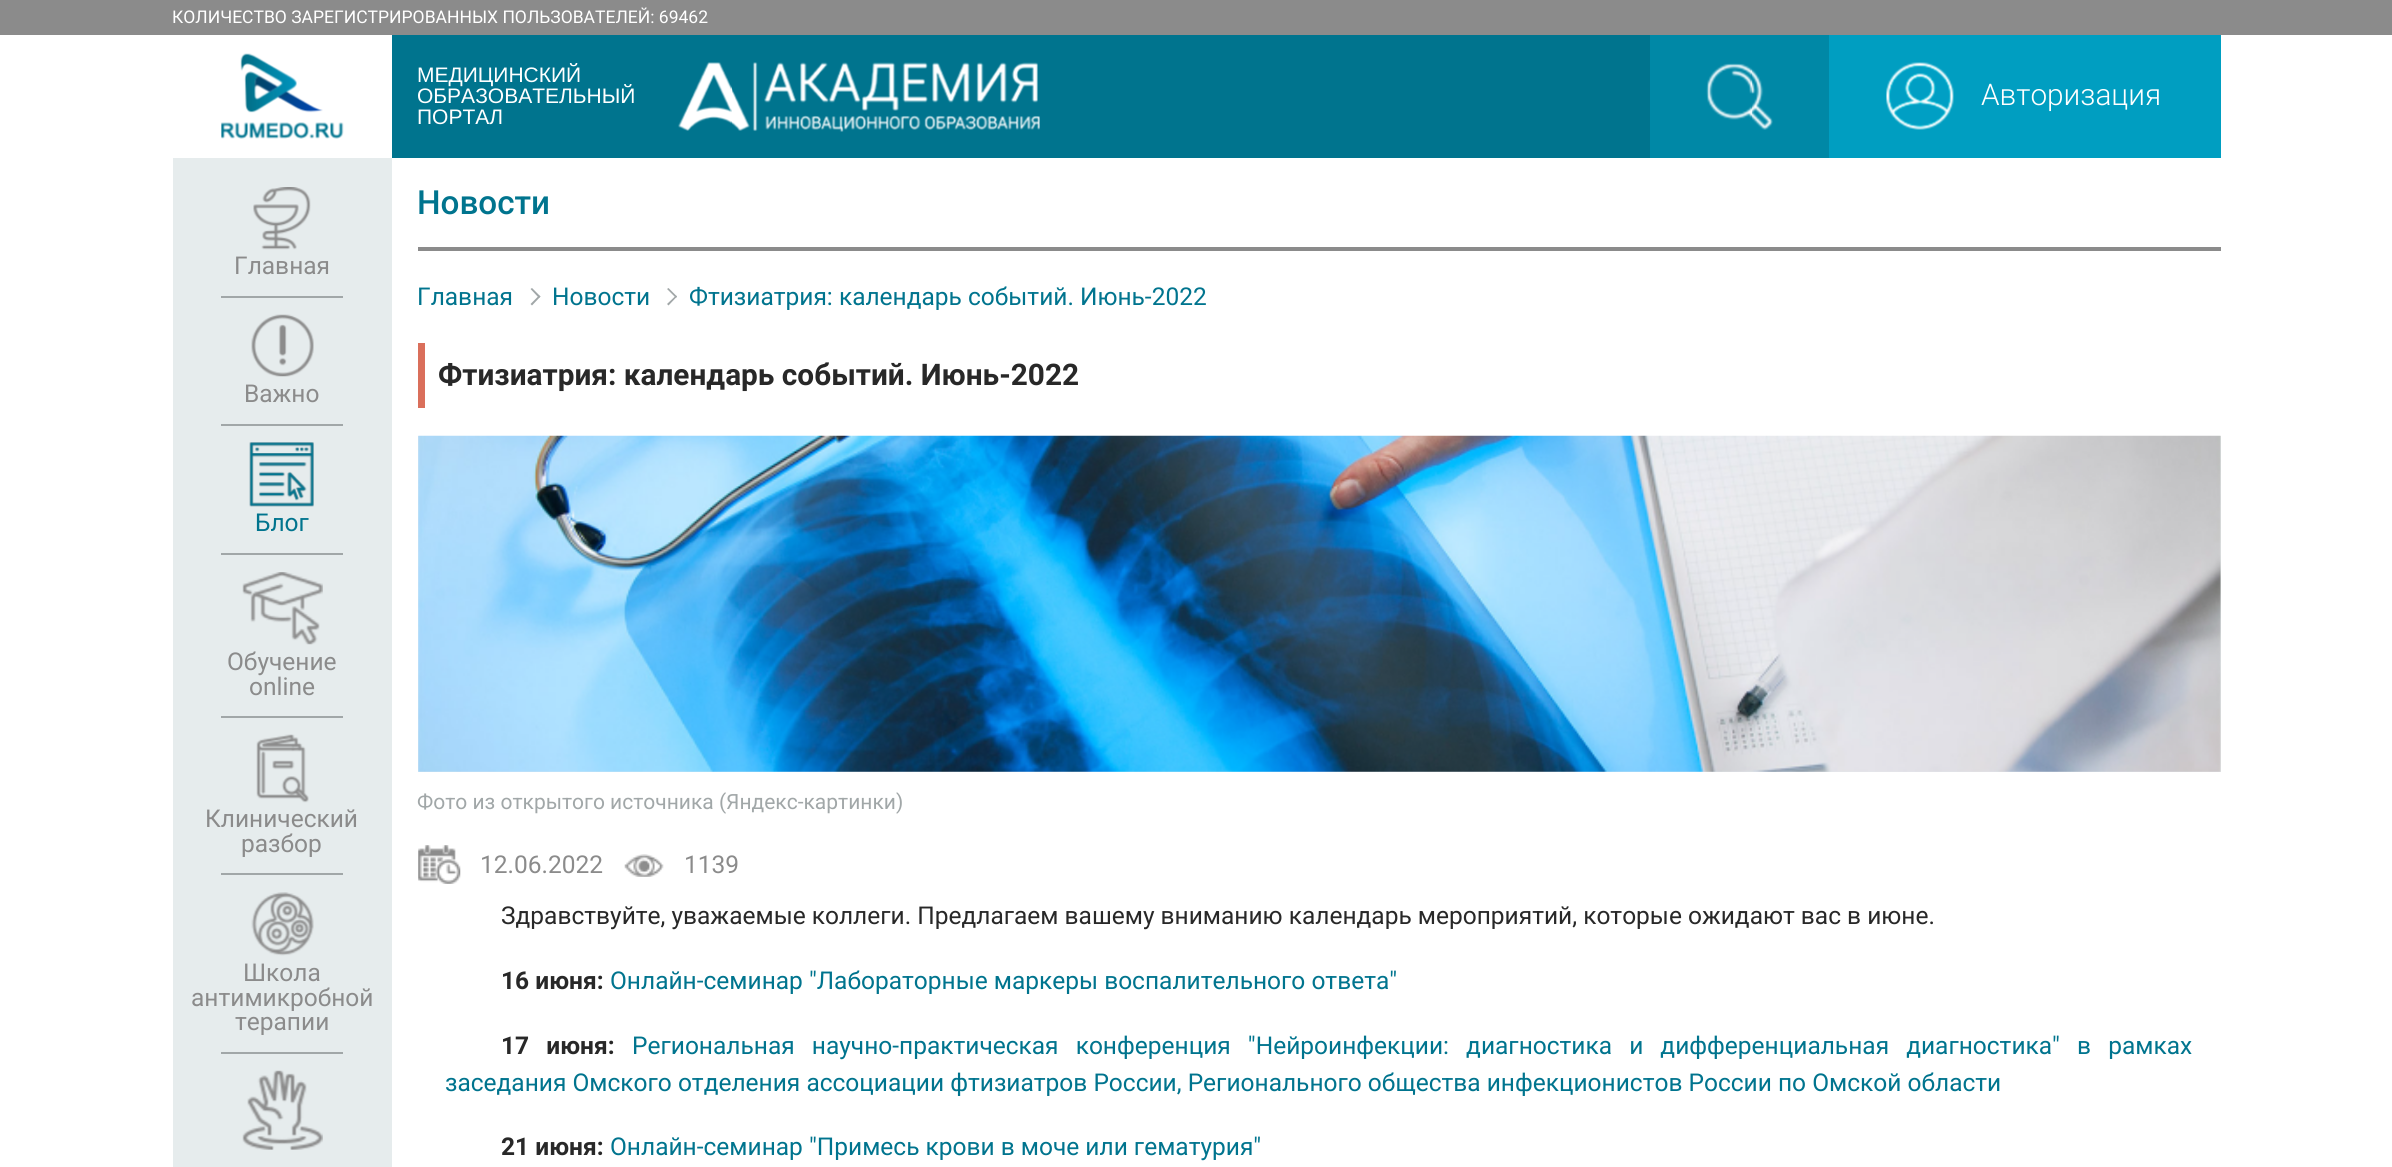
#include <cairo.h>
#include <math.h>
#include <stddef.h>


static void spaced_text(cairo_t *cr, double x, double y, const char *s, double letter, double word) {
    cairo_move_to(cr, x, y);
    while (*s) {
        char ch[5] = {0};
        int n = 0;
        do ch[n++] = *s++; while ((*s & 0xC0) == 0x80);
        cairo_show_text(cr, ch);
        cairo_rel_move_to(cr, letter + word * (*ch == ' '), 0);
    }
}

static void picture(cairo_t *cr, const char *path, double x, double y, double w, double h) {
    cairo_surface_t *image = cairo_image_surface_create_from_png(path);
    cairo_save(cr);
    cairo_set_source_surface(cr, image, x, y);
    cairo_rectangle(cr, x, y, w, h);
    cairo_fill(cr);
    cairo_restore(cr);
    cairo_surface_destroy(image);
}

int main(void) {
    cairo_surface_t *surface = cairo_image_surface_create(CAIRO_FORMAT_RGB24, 2392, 1167);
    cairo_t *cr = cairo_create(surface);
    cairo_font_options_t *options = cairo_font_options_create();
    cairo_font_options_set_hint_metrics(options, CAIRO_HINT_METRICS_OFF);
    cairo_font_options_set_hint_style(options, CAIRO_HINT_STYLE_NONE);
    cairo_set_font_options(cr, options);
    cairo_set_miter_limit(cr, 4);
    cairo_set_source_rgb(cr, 1, 1, 1);
    cairo_paint(cr);
    cairo_set_source_rgb(cr, 0.545, 0.545, 0.545);
    cairo_rectangle(cr, 0, 0, 2392, 35);
    cairo_fill(cr);
    cairo_select_font_face(cr, "Roboto", CAIRO_FONT_SLANT_NORMAL, CAIRO_FONT_WEIGHT_NORMAL);
    cairo_set_font_size(cr, 17.5);
    cairo_set_source_rgb(cr, 1, 1, 1);
    cairo_move_to(cr, 172, 23);
    cairo_show_text(cr, "КОЛИЧЕСТВО ЗАРЕГИСТРИРОВАННЫХ ПОЛЬЗОВАТЕЛЕЙ: 69462");
    cairo_set_source_rgb(cr, 0, 0.455, 0.557);
    cairo_rectangle(cr, 392, 35, 1258, 123);
    cairo_fill(cr);
    picture(cr, "img1.png", 221, 53, 123, 86);
    cairo_select_font_face(cr, "Liberation Sans", CAIRO_FONT_SLANT_NORMAL, CAIRO_FONT_WEIGHT_NORMAL);
    cairo_set_font_size(cr, 21);
    cairo_set_source_rgb(cr, 1, 1, 1);
    cairo_move_to(cr, 417, 82);
    cairo_show_text(cr, "МЕДИЦИНСКИЙ");
    cairo_move_to(cr, 417, 103);
    cairo_show_text(cr, "ОБРАЗОВАТЕЛЬНЫЙ");
    cairo_move_to(cr, 417, 124);
    cairo_show_text(cr, "ПОРТАЛ");
    picture(cr, "img2.png", 678, 62, 362, 70);
    cairo_set_source_rgb(cr, 0, 0.533, 0.651);
    cairo_rectangle(cr, 1650, 35, 179, 123);
    cairo_fill(cr);
    picture(cr, "img3.png", 1706, 63, 67, 67);
    cairo_set_source_rgb(cr, 0, 0.62, 0.757);
    cairo_rectangle(cr, 1829, 35, 392, 123);
    cairo_fill(cr);
    picture(cr, "img4.png", 1886, 62, 68, 68);
    cairo_select_font_face(cr, "Roboto Light", CAIRO_FONT_SLANT_NORMAL, CAIRO_FONT_WEIGHT_NORMAL);
    cairo_set_font_size(cr, 29.75);
    cairo_set_source_rgb(cr, 1, 1, 1);
    cairo_move_to(cr, 1981, 105);
    cairo_show_text(cr, "Авторизация");
    cairo_set_source_rgb(cr, 0.902, 0.925, 0.929);
    cairo_rectangle(cr, 173, 158, 219, 1009);
    cairo_fill(cr);
    picture(cr, "img5.png", 253, 187, 58, 63);
    cairo_select_font_face(cr, "Roboto", CAIRO_FONT_SLANT_NORMAL, CAIRO_FONT_WEIGHT_NORMAL);
    cairo_set_font_size(cr, 24.5);
    cairo_set_source_rgb(cr, 0.545, 0.545, 0.545);
    cairo_move_to(cr, 234, 274);
    cairo_show_text(cr, "Главная");
    cairo_set_source_rgb(cr, 0.631, 0.655, 0.659);
    cairo_rectangle(cr, 221, 296, 122, 2);
    cairo_fill(cr);
    picture(cr, "img6.png", 251, 314, 63, 63);
    cairo_set_source_rgb(cr, 0.545, 0.545, 0.545);
    cairo_move_to(cr, 244, 402);
    cairo_show_text(cr, "Важно");
    cairo_set_source_rgb(cr, 0.631, 0.655, 0.659);
    cairo_rectangle(cr, 221, 424, 122, 2);
    cairo_fill(cr);
    picture(cr, "img7.png", 249, 442, 65, 65);
    picture(cr, "img8.png", 249, 442, 65, 65);
    cairo_set_source_rgb(cr, 0, 0.455, 0.557);
    cairo_move_to(cr, 255, 531);
    cairo_show_text(cr, "Блог");
    cairo_set_source_rgb(cr, 0.631, 0.655, 0.659);
    cairo_rectangle(cr, 221, 553, 122, 2);
    cairo_fill(cr);
    picture(cr, "img9.png", 242, 572, 81, 73);
    cairo_set_source_rgb(cr, 0.545, 0.545, 0.545);
    cairo_move_to(cr, 227, 670);
    cairo_show_text(cr, "Обучение");
    cairo_move_to(cr, 249, 695);
    cairo_show_text(cr, "online");
    cairo_set_source_rgb(cr, 0.631, 0.655, 0.659);
    cairo_rectangle(cr, 221, 716, 122, 2);
    cairo_fill(cr);
    picture(cr, "img10.png", 256, 734, 53, 69);
    cairo_set_source_rgb(cr, 0.545, 0.545, 0.545);
    cairo_move_to(cr, 205, 827);
    cairo_show_text(cr, "Клинический");
    cairo_move_to(cr, 241, 852);
    cairo_show_text(cr, "разбор");
    cairo_set_source_rgb(cr, 0.631, 0.655, 0.659);
    cairo_rectangle(cr, 221, 873, 122, 2);
    cairo_fill(cr);
    picture(cr, "img11.png", 251, 892, 63, 64);
    cairo_set_source_rgb(cr, 0.545, 0.545, 0.545);
    cairo_move_to(cr, 243, 981);
    cairo_show_text(cr, "Школа");
    cairo_move_to(cr, 191, 1006);
    cairo_show_text(cr, "антимикробной");
    cairo_move_to(cr, 235, 1030);
    cairo_show_text(cr, "терапии");
    cairo_set_source_rgb(cr, 0.631, 0.655, 0.659);
    cairo_rectangle(cr, 221, 1052, 122, 2);
    cairo_fill(cr);
    picture(cr, "img12.png", 242, 1070, 81, 80);
    cairo_set_source_rgb(cr, 0.545, 0.545, 0.545);
    cairo_rectangle(cr, 418, 247, 1803, 4);
    cairo_fill(cr);
    cairo_select_font_face(cr, "Roboto Medium", CAIRO_FONT_SLANT_NORMAL, CAIRO_FONT_WEIGHT_NORMAL);
    cairo_set_font_size(cr, 33.25);
    cairo_set_source_rgb(cr, 0, 0.455, 0.557);
    cairo_move_to(cr, 417, 214);
    cairo_show_text(cr, "Новости");
    cairo_select_font_face(cr, "Roboto", CAIRO_FONT_SLANT_NORMAL, CAIRO_FONT_WEIGHT_NORMAL);
    cairo_set_font_size(cr, 24.5);
    cairo_move_to(cr, 417, 305);
    cairo_show_text(cr, "Главная");
    cairo_set_source_rgb(cr, 0.631, 0.655, 0.659);
    cairo_new_path(cr);
    cairo_move_to(cr, 532, 288);
    cairo_line_to(cr, 540.5, 296.5);
    cairo_line_to(cr, 539, 298);
    cairo_line_to(cr, 530.5, 289);
    cairo_close_path(cr);
    cairo_fill(cr);
    cairo_new_path(cr);
    cairo_move_to(cr, 539, 295.5);
    cairo_line_to(cr, 540.5, 296.5);
    cairo_line_to(cr, 532, 305.5);
    cairo_line_to(cr, 530.5, 304);
    cairo_close_path(cr);
    cairo_fill(cr);
    cairo_set_source_rgb(cr, 0, 0.455, 0.557);
    cairo_move_to(cr, 552, 305);
    cairo_show_text(cr, "Новости");
    cairo_set_source_rgb(cr, 0.631, 0.655, 0.659);
    cairo_new_path(cr);
    cairo_move_to(cr, 668.5, 288);
    cairo_line_to(cr, 677, 296.5);
    cairo_line_to(cr, 676, 298);
    cairo_line_to(cr, 667, 289);
    cairo_close_path(cr);
    cairo_fill(cr);
    cairo_new_path(cr);
    cairo_move_to(cr, 676, 295.5);
    cairo_line_to(cr, 677, 296.5);
    cairo_line_to(cr, 668.5, 305.5);
    cairo_line_to(cr, 667, 304);
    cairo_close_path(cr);
    cairo_fill(cr);
    cairo_set_source_rgb(cr, 0, 0.455, 0.557);
    cairo_move_to(cr, 689, 305);
    cairo_show_text(cr, "Фтизиатрия: календарь событий. Июнь-2022");
    cairo_set_source_rgb(cr, 0.855, 0.435, 0.357);
    cairo_rectangle(cr, 418, 343, 7, 65);
    cairo_fill(cr);
    cairo_select_font_face(cr, "Roboto", CAIRO_FONT_SLANT_NORMAL, CAIRO_FONT_WEIGHT_BOLD);
    cairo_set_font_size(cr, 29.75);
    cairo_set_source_rgb(cr, 0.157, 0.157, 0.157);
    cairo_move_to(cr, 438, 385);
    cairo_show_text(cr, "Фтизиатрия: календарь событий. Июнь-2022");
    cairo_set_source_rgb(cr, 0.902, 0.925, 0.929);
    cairo_rectangle(cr, 418, 436, 1803, 336);
    cairo_fill(cr);
    picture(cr, "img13.png", 418, 435, 1803, 337);
    cairo_select_font_face(cr, "Roboto", CAIRO_FONT_SLANT_NORMAL, CAIRO_FONT_WEIGHT_NORMAL);
    cairo_set_font_size(cr, 21);
    cairo_set_source_rgb(cr, 0.631, 0.655, 0.659);
    cairo_move_to(cr, 417, 809);
    cairo_show_text(cr, "Фото из открытого источника (Яндекс-картинки)");
    picture(cr, "img14.png", 418, 845, 43, 39);
    cairo_set_font_size(cr, 24.5);
    cairo_set_source_rgb(cr, 0.545, 0.545, 0.545);
    cairo_move_to(cr, 480, 873);
    cairo_show_text(cr, "12.06.2022");
    picture(cr, "img15.png", 624, 854, 40, 23);
    cairo_move_to(cr, 684, 873);
    cairo_show_text(cr, "1139");
    cairo_set_source_rgb(cr, 0.157, 0.157, 0.157);
    cairo_move_to(cr, 501, 924);
    cairo_show_text(cr, "Здравствуйте, уважаемые коллеги. Предлагаем вашему вниманию календарь мероприятий, которые ожидают вас в июне.");
    cairo_select_font_face(cr, "Roboto", CAIRO_FONT_SLANT_NORMAL, CAIRO_FONT_WEIGHT_BOLD);
    cairo_move_to(cr, 501, 989);
    cairo_show_text(cr, "16 июня:");
    cairo_select_font_face(cr, "Roboto", CAIRO_FONT_SLANT_NORMAL, CAIRO_FONT_WEIGHT_NORMAL);
    cairo_set_source_rgb(cr, 0, 0.455, 0.557);
    cairo_move_to(cr, 610, 989);
    cairo_show_text(cr, "Онлайн-семинар \"Лабораторные маркеры воспалительного ответа\"");
    cairo_select_font_face(cr, "Roboto", CAIRO_FONT_SLANT_NORMAL, CAIRO_FONT_WEIGHT_BOLD);
    cairo_set_source_rgb(cr, 0.157, 0.157, 0.157);
    spaced_text(cr, 501, 1054, "17 июня:", 0, 11);
    cairo_select_font_face(cr, "Roboto", CAIRO_FONT_SLANT_NORMAL, CAIRO_FONT_WEIGHT_NORMAL);
    cairo_set_source_rgb(cr, 0, 0.455, 0.557);
    spaced_text(cr, 632, 1054, "Региональная научно-практическая конференция \"Нейроинфекции: диагностика и дифференциальная диагностика\" в рамках", 0, 11);
    cairo_move_to(cr, 445, 1091);
    cairo_show_text(cr, "заседания Омского отделения ассоциации фтизиатров России, Регионального общества инфекционистов России по Омской области");
    cairo_select_font_face(cr, "Roboto", CAIRO_FONT_SLANT_NORMAL, CAIRO_FONT_WEIGHT_BOLD);
    cairo_set_source_rgb(cr, 0.157, 0.157, 0.157);
    cairo_move_to(cr, 501, 1155);
    cairo_show_text(cr, "21 июня:");
    cairo_select_font_face(cr, "Roboto", CAIRO_FONT_SLANT_NORMAL, CAIRO_FONT_WEIGHT_NORMAL);
    cairo_set_source_rgb(cr, 0, 0.455, 0.557);
    cairo_move_to(cr, 610, 1155);
    cairo_show_text(cr, "Онлайн-семинар \"Примесь крови в моче или гематурия\"");
    cairo_surface_write_to_png(surface, "page.png");
    cairo_font_options_destroy(options);
    cairo_destroy(cr);
    cairo_surface_destroy(surface);
    return 0;
}
